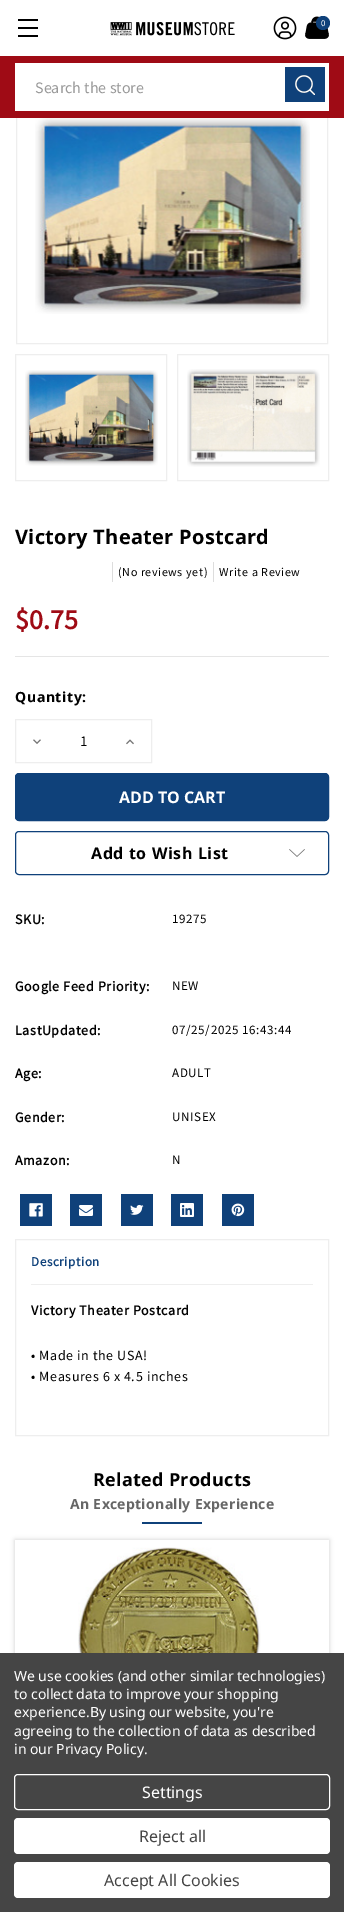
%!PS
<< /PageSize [344 1912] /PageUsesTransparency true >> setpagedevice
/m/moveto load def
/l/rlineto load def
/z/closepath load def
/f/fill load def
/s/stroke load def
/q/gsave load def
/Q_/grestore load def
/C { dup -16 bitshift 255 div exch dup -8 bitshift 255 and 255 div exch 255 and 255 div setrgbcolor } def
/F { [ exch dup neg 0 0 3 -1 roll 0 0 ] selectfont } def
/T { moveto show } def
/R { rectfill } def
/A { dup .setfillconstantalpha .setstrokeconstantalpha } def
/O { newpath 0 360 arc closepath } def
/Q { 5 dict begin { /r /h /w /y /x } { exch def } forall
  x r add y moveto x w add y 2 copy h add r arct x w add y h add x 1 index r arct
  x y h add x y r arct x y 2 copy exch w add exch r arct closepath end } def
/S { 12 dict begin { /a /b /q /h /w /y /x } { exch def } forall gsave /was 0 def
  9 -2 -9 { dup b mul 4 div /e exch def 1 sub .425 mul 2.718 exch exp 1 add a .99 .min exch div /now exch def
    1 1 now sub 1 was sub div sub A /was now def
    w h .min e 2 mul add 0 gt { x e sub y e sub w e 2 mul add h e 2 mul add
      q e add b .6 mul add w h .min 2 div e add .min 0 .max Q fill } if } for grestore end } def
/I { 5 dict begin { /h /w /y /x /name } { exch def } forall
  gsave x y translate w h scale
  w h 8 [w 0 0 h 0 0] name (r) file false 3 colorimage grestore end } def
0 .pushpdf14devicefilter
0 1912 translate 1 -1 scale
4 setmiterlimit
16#FFFFFF C
0 0 344 1912 R
16#000000 C
18 27 20 2 R
18 19 20 2 R
18 35 20 2 R
(1.rgb) 110 22 125 14 I
(2.rgb) 273 16 24 24 I
(3.rgb) 305 16 24 23 I
16#0F417A C
323 23 7 O f
/SourceSansPro-Regular 9 F
16#FFFFFF C
(0) 321 26 T
16#EEEEEE C
16.5 85.5 311 258 rectstroke
16#9F0B15 C
0 56 344 62 R
16#FFFFFF C
15 63 314 48 R
/SourceSansPro-Regular 16 F
16#999999 C
(Search the store) 35 93 T
16#0F417A C
285 67 40 35 R
(4.rgb) 295 75 20 20 I
(5.rgb) 35 118 275 196 I
16#EEEEEE C
15.5 354.5 151 126 rectstroke
(6.rgb) 25 370 133 96 I
177.5 354.5 151 126 rectstroke
(7.rgb) 187 369 133 98 I
/OpenSans-Bold 20 F
16#000000 C
15 544 m .3 0 (Victory Theater Postcard) ashow
16#DDDDDD C
213 562 1 20 R
112 562 1 20 R
/SourceSansPro-Regular 12 F
16#000000 C
118 576 m .6 0 (\(No reviews yet\)) ashow
219 576 m .6 0 (Write a Review) ashow
/SourceSansPro-Bold 28 F
16#9F0B15 C
($0.75) 15 629 T
16#E5E5E5 C
15 656 314 1 R
/OpenSans-Bold 14 F
16#000000 C
15 702 m .6 0 (Quantity:) ashow
16#EEEEEE C
15.5 719.5 136 43 rectstroke
(8.rgb) 33 739 8 5 I
/SourceSansPro-Regular 15 F
16#000000 C
(1) 80 746 T
(9.rgb) 126 739 8 6 I
16#0F417A C
15.5 773.5 313 47 3.5 Q q f Q_
s
/OpenSans-Bold 16 F
16#FFFFFF C
(ADD TO CART) 119 803 T
16#0F417A C
15.5 831.5 313 43 3.5 Q s
16#000000 C
91 859 m .6 0 (Add to Wish List) ashow
(10.rgb) 289 849 16 8 I
/SourceSansPro-Bold 14 F
15 924 m .6 0 (SKU:) ashow
/SourceSansPro-Regular 13 F
172 923 m .6 0 (19275) ashow
/SourceSansPro-Bold 14 F
15 991 m .6 0 (Google Feed Priority:) ashow
/SourceSansPro-Regular 13 F
172 990 m .6 0 (NEW) ashow
/SourceSansPro-Bold 14 F
15 1035 m .6 0 (LastUpdated:) ashow
/SourceSansPro-Regular 13 F
172 1034 m .6 0 (07/25/2025 16:43:44) ashow
/SourceSansPro-Bold 14 F
15 1078 m .6 0 (Age:) ashow
/SourceSansPro-Regular 13 F
172 1077 m .6 0 (ADULT) ashow
/SourceSansPro-Bold 14 F
15 1122 m .6 0 (Gender:) ashow
/SourceSansPro-Regular 13 F
172 1121 m .6 0 (UNISEX) ashow
/SourceSansPro-Bold 14 F
15 1165 m .6 0 (Amazon:) ashow
/SourceSansPro-Regular 13 F
172 1164 m .6 0 (N) ashow
16#0F417A C
20 1194 32 32 R
(11.rgb) 29 1203 14 14 I
70 1194 32 32 R
(12.rgb) 79 1205 14 11 I
121 1194 32 32 R
(13.rgb) 130 1204 14 11 I
171 1194 32 32 R
(14.rgb) 180 1203 14 14 I
222 1194 32 32 R
(15.rgb) 231 1203 14 14 I
16#EEEEEE C
15.5 1239.5 313 196 rectstroke
31 1284 282 1 R
/SourceSansPro-Bold 13 F
16#0F417A C
31 1266 m .6 0 (Description) ashow
/SourceSansPro-Bold 14 F
16#000000 C
31 1315 m .6 0 (Victory Theater Postcard) ashow
/SourceSansPro-Regular 14 F
31 1360 m .6 0 (• Made in the USA!) ashow
31 1381 m .6 0 (• Measures 6 x 4.5 inches) ashow
/OpenSans-Bold 18 F
93 1486 m .3 0 (Related Products) ashow
/OpenSans-Bold 14 F
16#666666 C
70 1509 m .3 0 (An Exceptionally Experience) ashow
16#0F417A C
142 1522 60 2 R
q
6 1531 m 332 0 l 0 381 l -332 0 l z 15 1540 m 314 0 l 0 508 l -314 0 l z eoclip newpath
16#000000 C
15 1540 314 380 0 2.5 .18 S
Q_
(16.rgb) 78 1547 183 106 I
16#454545 C
0 1653 344 259 R
/NotoSans-Regular 14 F
16#FFFFFF C
14 1681 m -.05 0 (We use cookies \(and other similar technologies\)) ashow
14 1699 m -.05 0 (to collect data to improve your shopping) ashow
14 1717 m -.05 0 (experience.By using our website, you're) ashow
14 1736 m -.05 0 (agreeing to the collection of data as described) ashow
14 1754 m -.05 0 (in our Privacy Policy.) ashow
14.5 1774.5 315 35 3.5 Q s
/NotoSans-Regular 16 F
(Settings) 142 1798 T
14 1818 316 36 4 Q f
16#454545 C
(Reject all) 139 1842 T
16#FFFFFF C
14 1862 316 36 4 Q f
16#454545 C
(Accept All Cookies) 104 1886 T
.poppdf14devicefilter showpage
